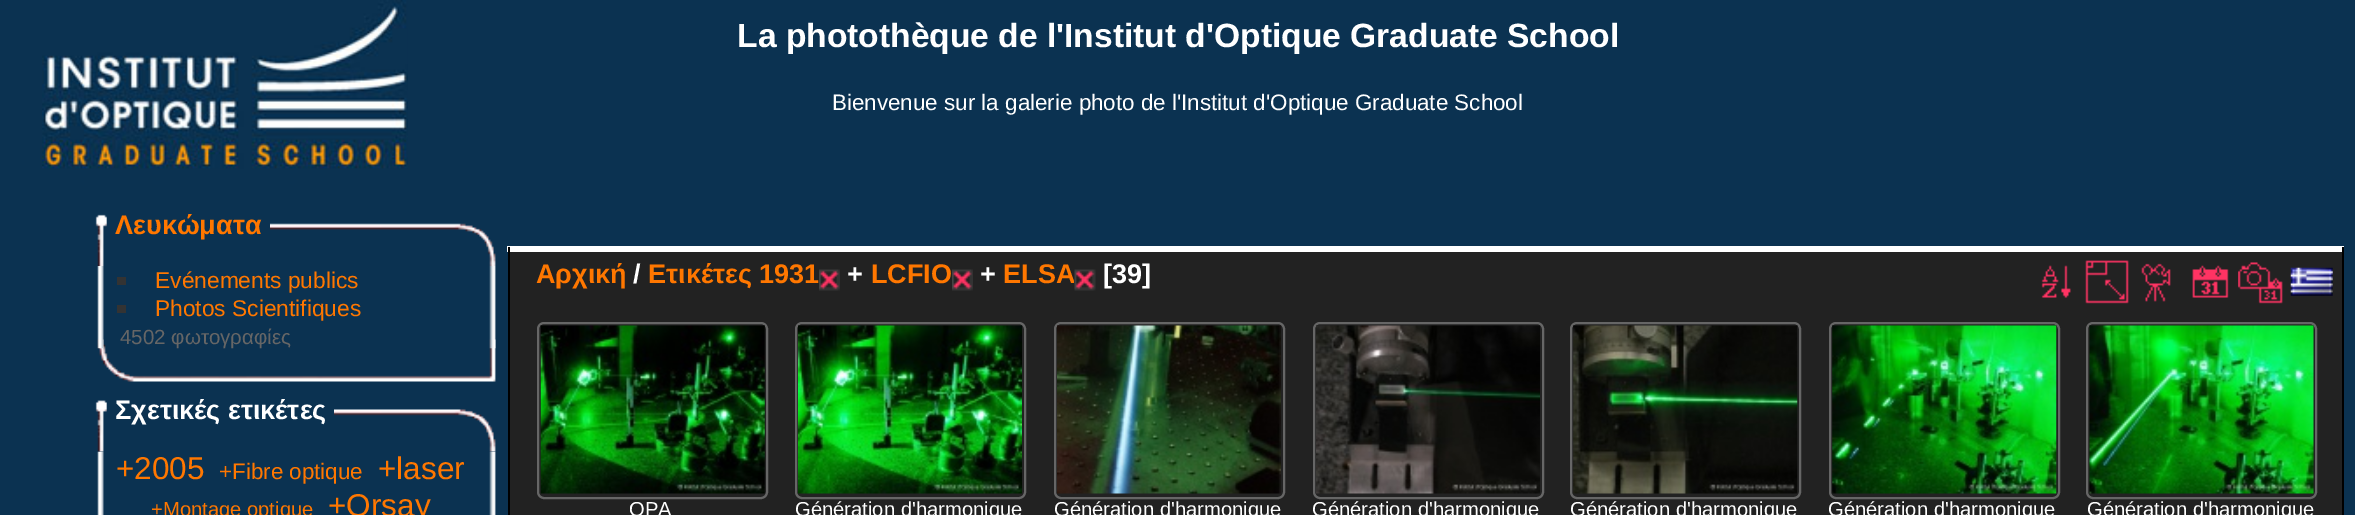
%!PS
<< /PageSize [2355 515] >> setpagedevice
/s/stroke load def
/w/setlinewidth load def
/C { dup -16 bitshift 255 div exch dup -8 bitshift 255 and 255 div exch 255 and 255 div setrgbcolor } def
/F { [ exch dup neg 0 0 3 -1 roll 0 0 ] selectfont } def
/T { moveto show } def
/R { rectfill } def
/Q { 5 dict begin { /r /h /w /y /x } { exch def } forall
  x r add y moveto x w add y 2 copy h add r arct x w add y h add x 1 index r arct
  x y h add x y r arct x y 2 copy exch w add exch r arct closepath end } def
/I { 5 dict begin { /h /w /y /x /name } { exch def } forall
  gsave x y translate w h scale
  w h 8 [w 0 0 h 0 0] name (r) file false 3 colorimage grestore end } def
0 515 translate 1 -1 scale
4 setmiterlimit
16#0B3251 C
0 0 2355 515 R
(1.rgb) 42 0 366 169 I
/LiberationSans-Bold 33.6 F
16#FFFFFF C
(La photothèque de l'Institut d'Optique Graduate School) 737 47 T
/LiberationSans-Regular 22.4 F
(Bienvenue sur la galerie photo de l'Institut d'Optique Graduate School) 832 110 T
(2.rgb) 95 214 401 52 I
16#0B3251 C
107 216 163 14 R
/LiberationSans-Bold 27 F
16#FF7700 C
(Λευκώματα) 115 234 T
(3.rgb) 97 339 399 43 I
(4.rgb) 97 266 399 56 I
16#333333 C
117 277 9 8 R
/LiberationSans-Regular 22.75 F
16#FF7700 C
(Evénements publics) 155 288 T
16#333333 C
117 305 9 8 R
16#FF7700 C
(Photos Scientifiques) 155 316 T
(5.rgb) 97 322 399 27 I
/LiberationSans-Regular 20.5 F
16#666666 C
(4502 φωτογραφίες) 120 344 T
(6.rgb) 95 400 401 52 I
16#0B3251 C
107 402 227 14 R
/LiberationSans-Bold 27 F
16#FFFFFF C
(Σχετικές ετικέτες) 115 419 T
(7.rgb) 97 451 399 64 I
/LiberationSans-Regular 31.5 F
16#FF7700 C
(+2005) 116 479 T
/LiberationSans-Regular 22.4 F
(+Fibre optique) 219 479 T
/LiberationSans-Regular 31.5 F
(+laser) 378 479 T
/LiberationSans-Regular 20.2 F
(+Montage optique) 151 516 T
/LiberationSans-Regular 31.5 F
(+Orsay) 328 516 T
16#222222 C
510 252 1832 263 R
16#FFFFFF C
507 246 1837 6 R
16#000000 C
2342 247 2 268 R
508 247 2 268 R
/LiberationSans-Bold 27 F
16#FF7700 C
(Αρχική) 536 283 T
16#FFFFFF C
(/) 633 283 T
16#FF7700 C
(Ετικέτες 1931) 648 283 T
(8.rgb) 819 269 21 22 I
16#FFFFFF C
(+) 847 283 T
16#FF7700 C
(LCFIO) 871 283 T
(8.rgb) 952 269 21 22 I
16#FFFFFF C
(+) 980 283 T
16#FF7700 C
(ELSA) 1003 283 T
(9.rgb) 1074 269 22 22 I
16#FFFFFF C
([39]) 1103 283 T
(10.rgb) 2041 265 30 33 I
(11.rgb) 2085 260 44 44 I
(12.rgb) 2141 263 30 39 I
(13.rgb) 2192 265 37 33 I
(14.rgb) 2238 262 45 42 I
(15.rgb) 2290 267 43 29 I
16#666666 C
2 w
538 323 229 175 6 Q s
(16.rgb) 540 325 225 169 I
/LiberationSans-Regular 20.2 F
16#FFFFFF C
(OPA) 629 516 T
16#666666 C
796 323 229 175 6 Q s
(17.rgb) 798 325 224 169 I
16#FFFFFF C
(Génération d'harmonique) 795 516 T
16#666666 C
1055 323 229 175 6 Q s
(18.rgb) 1057 325 224 169 I
16#FFFFFF C
(Génération d'harmonique) 1054 516 T
16#666666 C
1314 323 229 175 6 Q s
(19.rgb) 1316 325 224 169 I
16#FFFFFF C
(Génération d'harmonique) 1312 516 T
16#666666 C
1571 323 229 175 6 Q s
(20.rgb) 1573 325 225 169 I
16#FFFFFF C
(Génération d'harmonique) 1570 516 T
16#666666 C
1830 323 229 175 6 Q s
(21.rgb) 1832 325 225 169 I
16#FFFFFF C
(Génération d'harmonique) 1828 516 T
16#666666 C
2087 323 229 175 6 Q s
(22.rgb) 2089 325 225 169 I
16#FFFFFF C
(Génération d'harmonique) 2087 516 T
showpage
